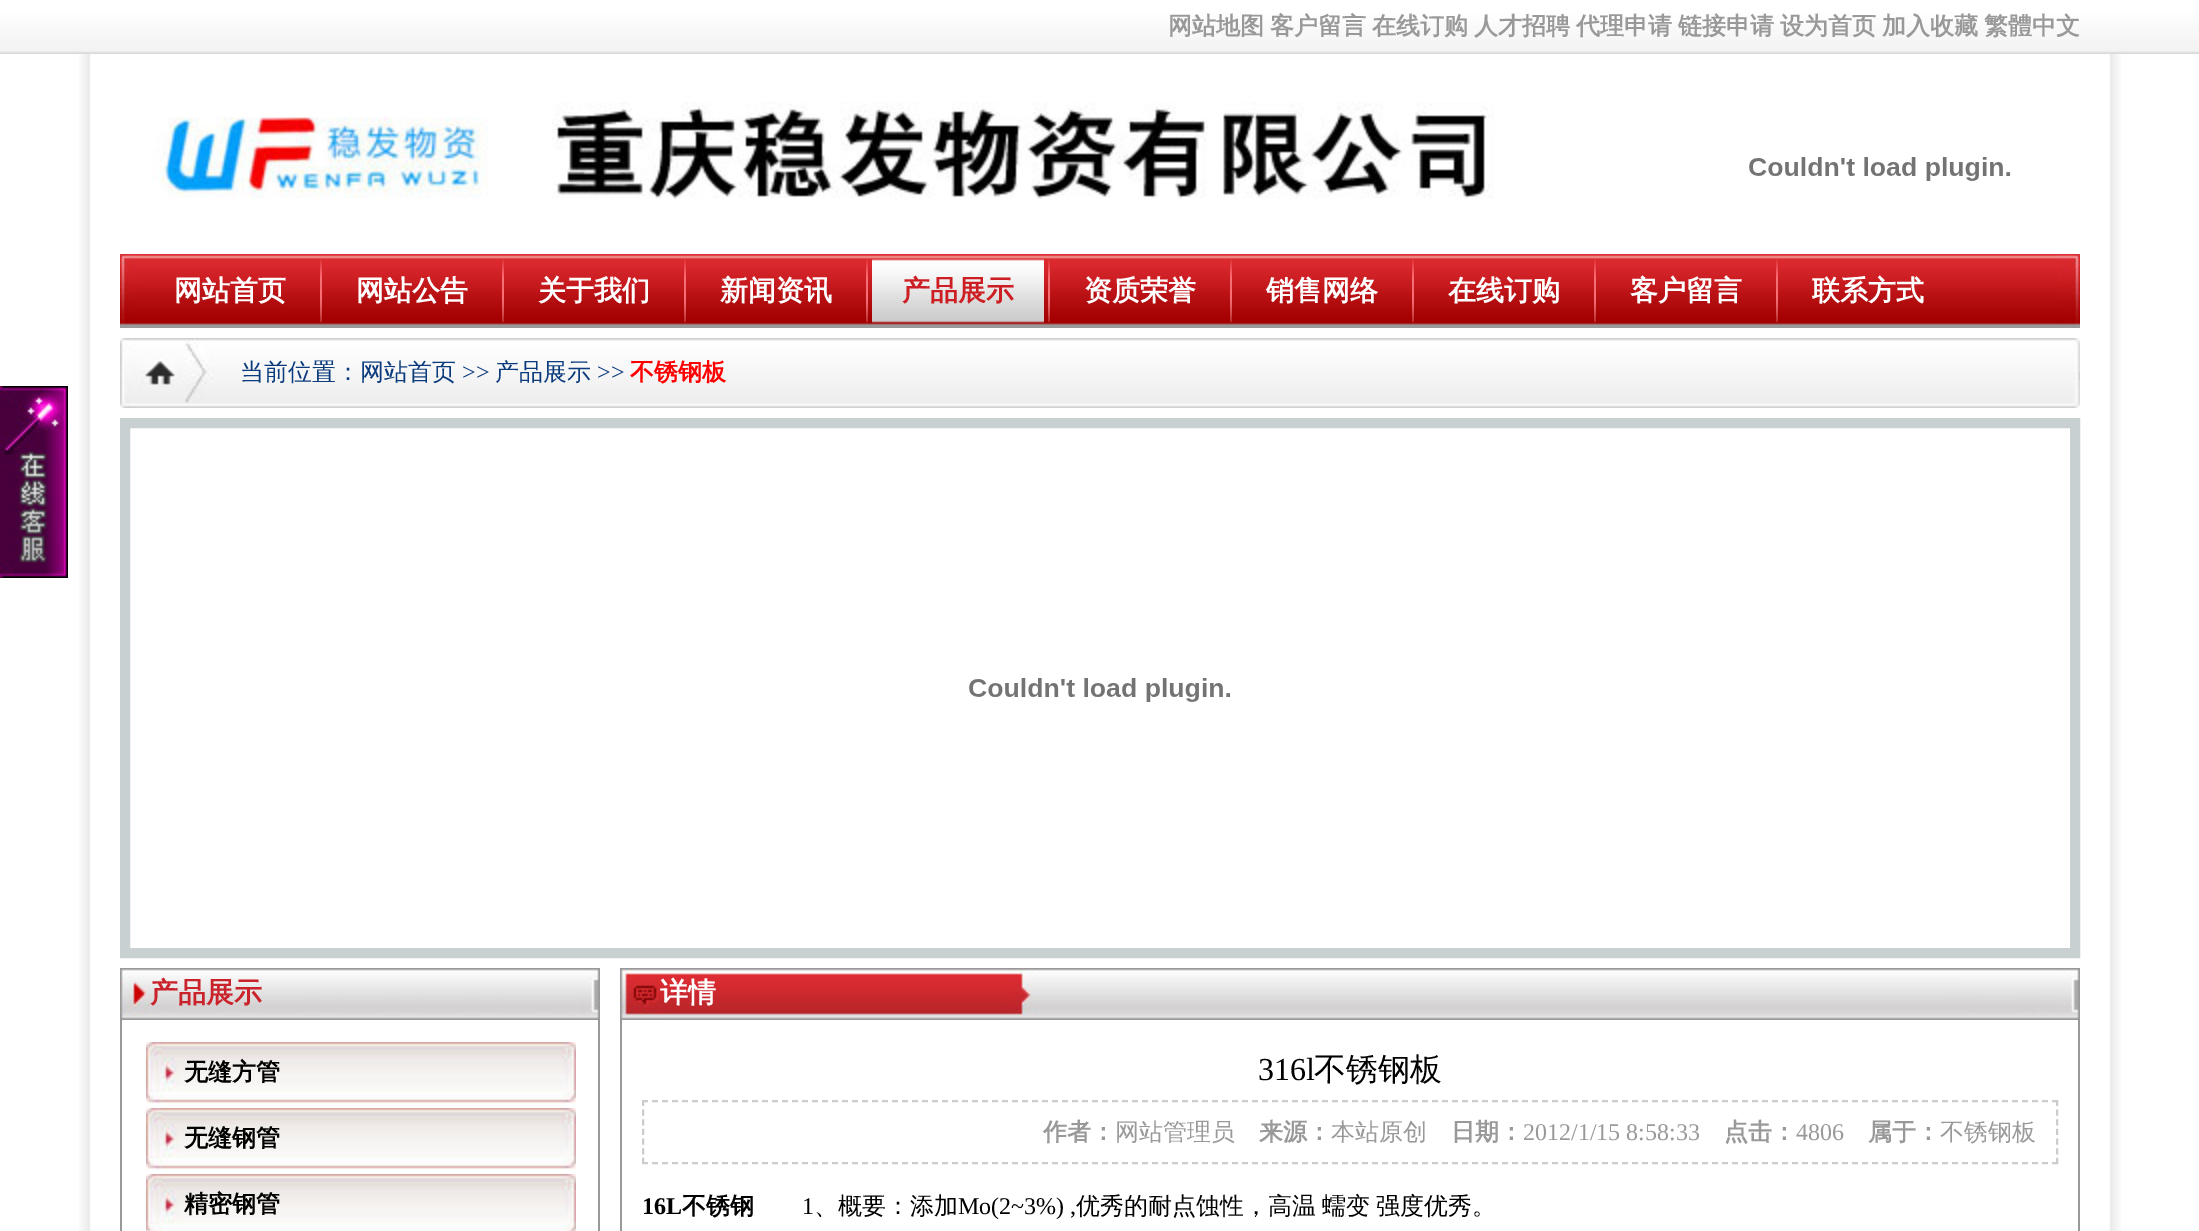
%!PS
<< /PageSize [2199 1231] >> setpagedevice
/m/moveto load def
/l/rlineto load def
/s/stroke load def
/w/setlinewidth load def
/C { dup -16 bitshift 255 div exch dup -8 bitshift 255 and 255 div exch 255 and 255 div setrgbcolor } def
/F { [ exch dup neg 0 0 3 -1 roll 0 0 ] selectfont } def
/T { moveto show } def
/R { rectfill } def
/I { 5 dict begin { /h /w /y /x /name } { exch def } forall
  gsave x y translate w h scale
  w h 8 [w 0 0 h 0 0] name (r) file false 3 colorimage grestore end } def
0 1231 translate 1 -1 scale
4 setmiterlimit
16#FFFFFF C
0 0 2199 1231 R
(1.rgb) 79 54 2042 1177 I
(2.rgb) 0 0 2199 54 I
/WenQuanYiZenHei-Bold 24 F
16#999999 C
(网站地图) 1168 34 T
(客户留言) 1270 34 T
(在线订购) 1372 34 T
(人才招聘) 1474 34 T
(代理申请) 1576 34 T
(链接申请) 1678 34 T
(设为首页) 1780 34 T
(加入收藏) 1882 34 T
(繁體中文) 1984 34 T
(3.rgb) 152 117 336 82 I
(4.rgb) 552 102 942 97 I
(5.rgb) 1749 157 262 24 I
(6.rgb) 120 254 1960 74 I
/WenQuanYiZenHei-Bold 28 F
16#FFFFFF C
(网站首页) 174 300 T
(7.rgb) 320 259 2 64 I
(网站公告) 356 300 T
(7.rgb) 502 259 2 64 I
(关于我们) 538 300 T
(7.rgb) 684 259 2 64 I
(新闻资讯) 720 300 T
(7.rgb) 866 259 2 64 I
(8.rgb) 872 259 172 64 I
16#CD1E23 C
(产品展示) 902 300 T
(7.rgb) 1048 259 2 64 I
16#FFFFFF C
(资质荣誉) 1084 300 T
(7.rgb) 1230 259 2 64 I
(销售网络) 1266 300 T
(7.rgb) 1412 259 2 64 I
(在线订购) 1448 300 T
(7.rgb) 1594 259 2 64 I
(客户留言) 1630 300 T
(7.rgb) 1776 259 2 64 I
(联系方式) 1812 300 T
(9.rgb) 120 338 1960 70 I
/WenQuanYiZenHei-Medium 24 F
16#0B3B7D C
(当前位置：网站首页) 240 380 T
/LiberationSerif-Regular 24 F
(>>) 462 380 T
/WenQuanYiZenHei-Medium 24 F
(产品展示) 495 380 T
/LiberationSerif-Regular 24 F
(>>) 597 380 T
/WenQuanYiZenHei-Bold 24 F
16#FF0000 C
(不锈钢板) 630 380 T
(10.rgb) 0 386 68 192 I
16#C8D0D2 C
10 w
125 423 1950 530 rectstroke
(5.rgb) 969 678 262 24 I
(11.rgb) 120 968 480 52 I
/WenQuanYiZenHei-Bold 28 F
16#CA232B C
(产品展示) 150 1002 T
16#999999 C
598 1020 2 211 R
120 1020 2 211 R
(12.rgb) 146 1042 430 62 I
/WenQuanYiZenHei-Bold 24 F
16#000000 C
(无缝方管) 184 1080 T
(12.rgb) 146 1108 430 62 I
(无缝钢管) 184 1146 T
(13.rgb) 146 1174 430 57 I
(精密钢管) 184 1212 T
(14.rgb) 620 968 1460 52 I
/WenQuanYiZenHei-Bold 28 F
16#FFFFFF C
(详情) 660 1002 T
16#999999 C
2078 1020 2 211 R
620 1020 2 211 R
/LiberationSerif-Regular 32 F
16#000000 C
(316l) 1258 1080 T
/WenQuanYiZenHei-Medium 32 F
(不锈钢板) 1314 1080 T
16#CCCCCC C
2 w
[6 4] 0 setdash
642 1101 m 1416 0 l s
[6 3.66] 0 setdash
2057 1100 m 0 64 l s
[6 4] 0 setdash
642 1163 m 1416 0 l s
[6 3.66] 0 setdash
643 1100 m 0 64 l s
/WenQuanYiZenHei-Bold 24 F
16#999999 C
(作者：) 1043 1140 T
/WenQuanYiZenHei-Medium 24 F
(网站管理员) 1115 1140 T
/WenQuanYiZenHei-Bold 24 F
(来源：) 1259 1140 T
/WenQuanYiZenHei-Medium 24 F
(本站原创) 1331 1140 T
/WenQuanYiZenHei-Bold 24 F
(日期：) 1451 1140 T
/LiberationSerif-Regular 24 F
(2012/1/15 8:58:33) 1523 1140 T
/WenQuanYiZenHei-Bold 24 F
(点击：) 1724 1140 T
/LiberationSerif-Regular 24 F
(4806) 1796 1140 T
/WenQuanYiZenHei-Bold 24 F
(属于：) 1868 1140 T
/WenQuanYiZenHei-Medium 24 F
(不锈钢板) 1940 1140 T
/LiberationSerif-Bold 24 F
16#000000 C
(16L) 642 1214 T
/WenQuanYiZenHei-Bold 24 F
(不锈钢) 682 1214 T
/LiberationSerif-Regular 24 F
(1) 802 1214 T
/WenQuanYiZenHei-Medium 24 F
(、概要：添加) 814 1214 T
/LiberationSerif-Regular 24 F
(Mo\(2~3%\) ,) 958 1214 T
/WenQuanYiZenHei-Medium 24 F
(优秀的耐点蚀性，高温) 1076 1214 T
(蠕变) 1322 1214 T
(强度优秀。) 1376 1214 T
showpage
